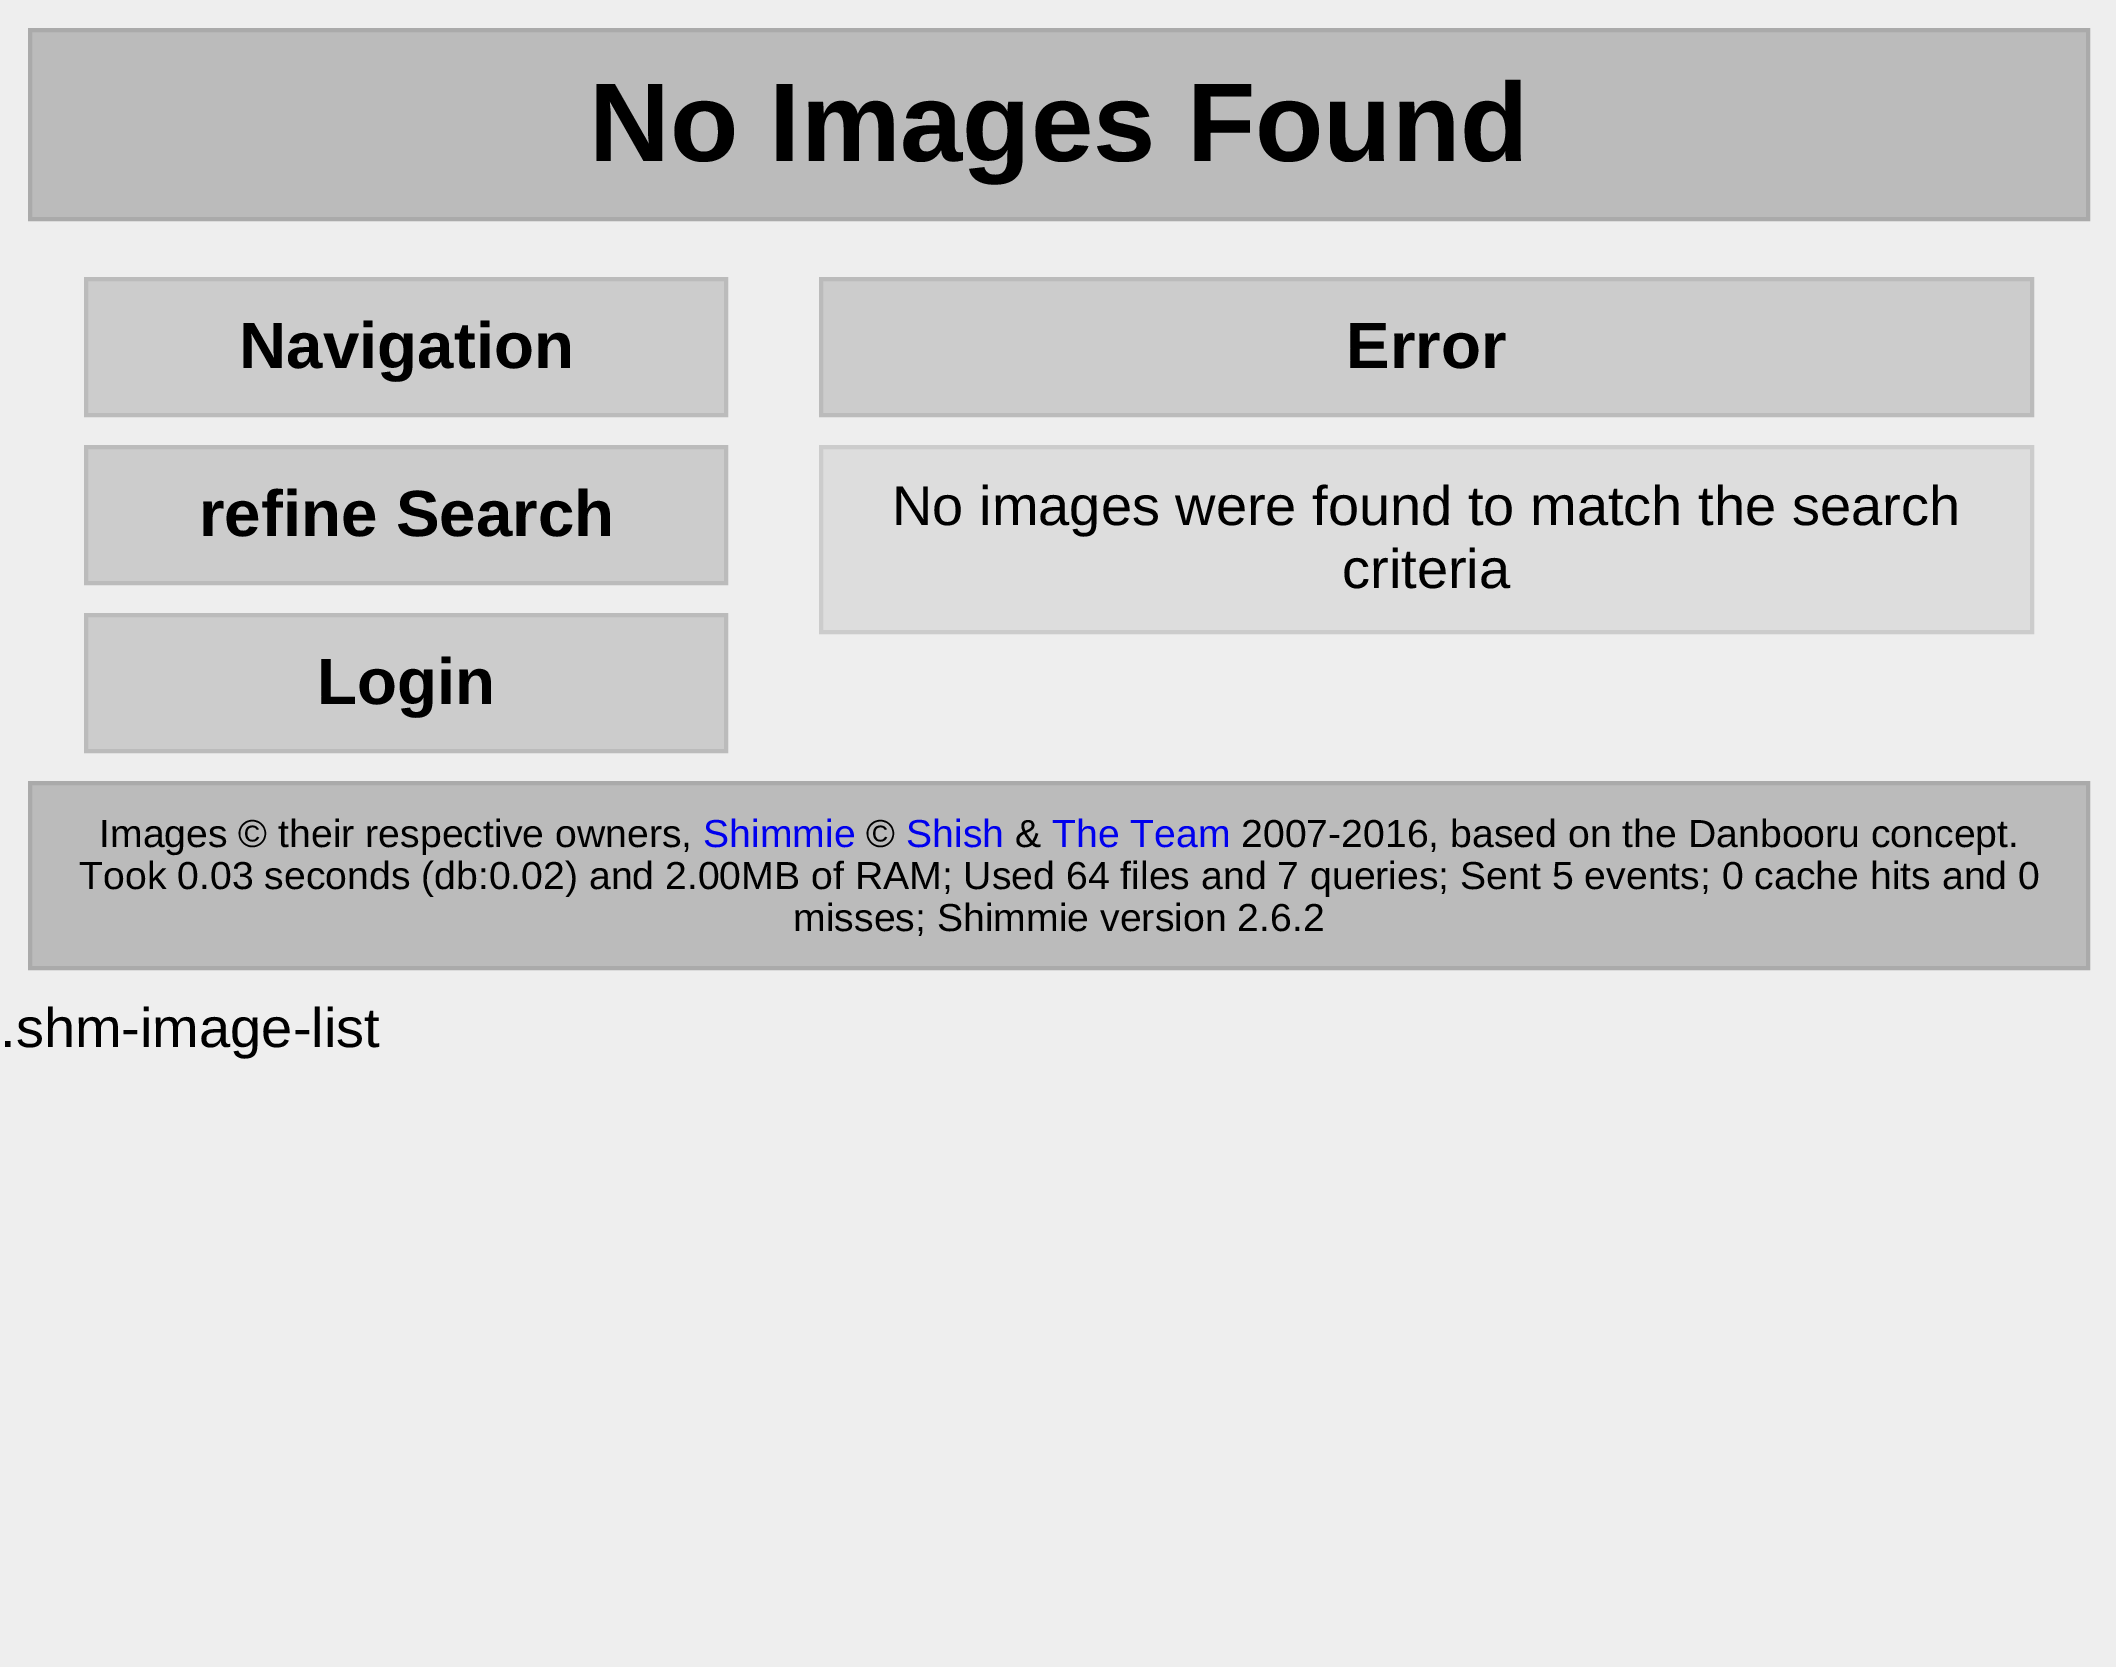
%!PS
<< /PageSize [2116 1667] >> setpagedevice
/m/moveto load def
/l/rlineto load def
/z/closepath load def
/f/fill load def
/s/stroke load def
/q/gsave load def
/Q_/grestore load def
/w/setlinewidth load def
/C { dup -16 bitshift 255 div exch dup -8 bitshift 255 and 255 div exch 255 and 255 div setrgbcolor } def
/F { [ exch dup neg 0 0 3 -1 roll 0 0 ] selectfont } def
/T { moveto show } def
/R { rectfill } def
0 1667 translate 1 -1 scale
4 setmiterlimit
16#EEEEEE C
0 0 2116 1667 R
16#BBBBBB C
30 30 m 2058 0 l 0 189 l -2058 0 l z q f Q_
16#AAAAAA C
4 w
s
/LiberationSans-Bold 112 F
16#000000 C
(No Images Found) 589 161 T
16#CCCCCC C
86 279 m 640 0 l 0 136 l -640 0 l z q f Q_
16#BBBBBB C
s
/LiberationSans-Bold 65.5 F
16#000000 C
(Navigation) 239 368 T
16#CCCCCC C
86 447 m 640 0 l 0 136 l -640 0 l z q f Q_
16#BBBBBB C
s
16#000000 C
(refine Search) 199 536 T
16#CCCCCC C
86 615 m 640 0 l 0 136 l -640 0 l z q f Q_
16#BBBBBB C
s
16#000000 C
(Login) 317 704 T
16#CCCCCC C
821 279 m 1211 0 l 0 136 l -1211 0 l z q f Q_
16#BBBBBB C
s
16#000000 C
(Error) 1346 368 T
16#DDDDDD C
821 447 m 1211 0 l 0 185 l -1211 0 l z q f Q_
16#CCCCCC C
s
/LiberationSans-Regular 56 F
16#000000 C
(No images were found to match the search) 892 525 T
(criteria) 1342 588 T
16#BBBBBB C
30 783 m 2058 0 l 0 185 l -2058 0 l z q f Q_
16#AAAAAA C
s
/LiberationSans-Regular 39.2 F
16#000000 C
(Images © their respective owners,) 99 847 T
16#0000EE C
(Shimmie) 703 847 T
16#000000 C
(©) 866 847 T
16#0000EE C
(Shish) 906 847 T
16#000000 C
(&) 1015 847 T
16#0000EE C
(The Team) 1052 847 T
16#000000 C
(2007-2016, based on the Danbooru concept.) 1241 847 T
(Took 0.03 seconds \(db:0.02\) and) 79 889 T
(2.00MB of RAM; Used 64 files and 7 queries; Sent 5 events; 0 cache hits and 0) 665 889 T
(misses; Shimmie version 2.6.2) 793 931 T
/LiberationSans-Regular 56 F
(.shm-image-list) 0 1047 T
showpage
